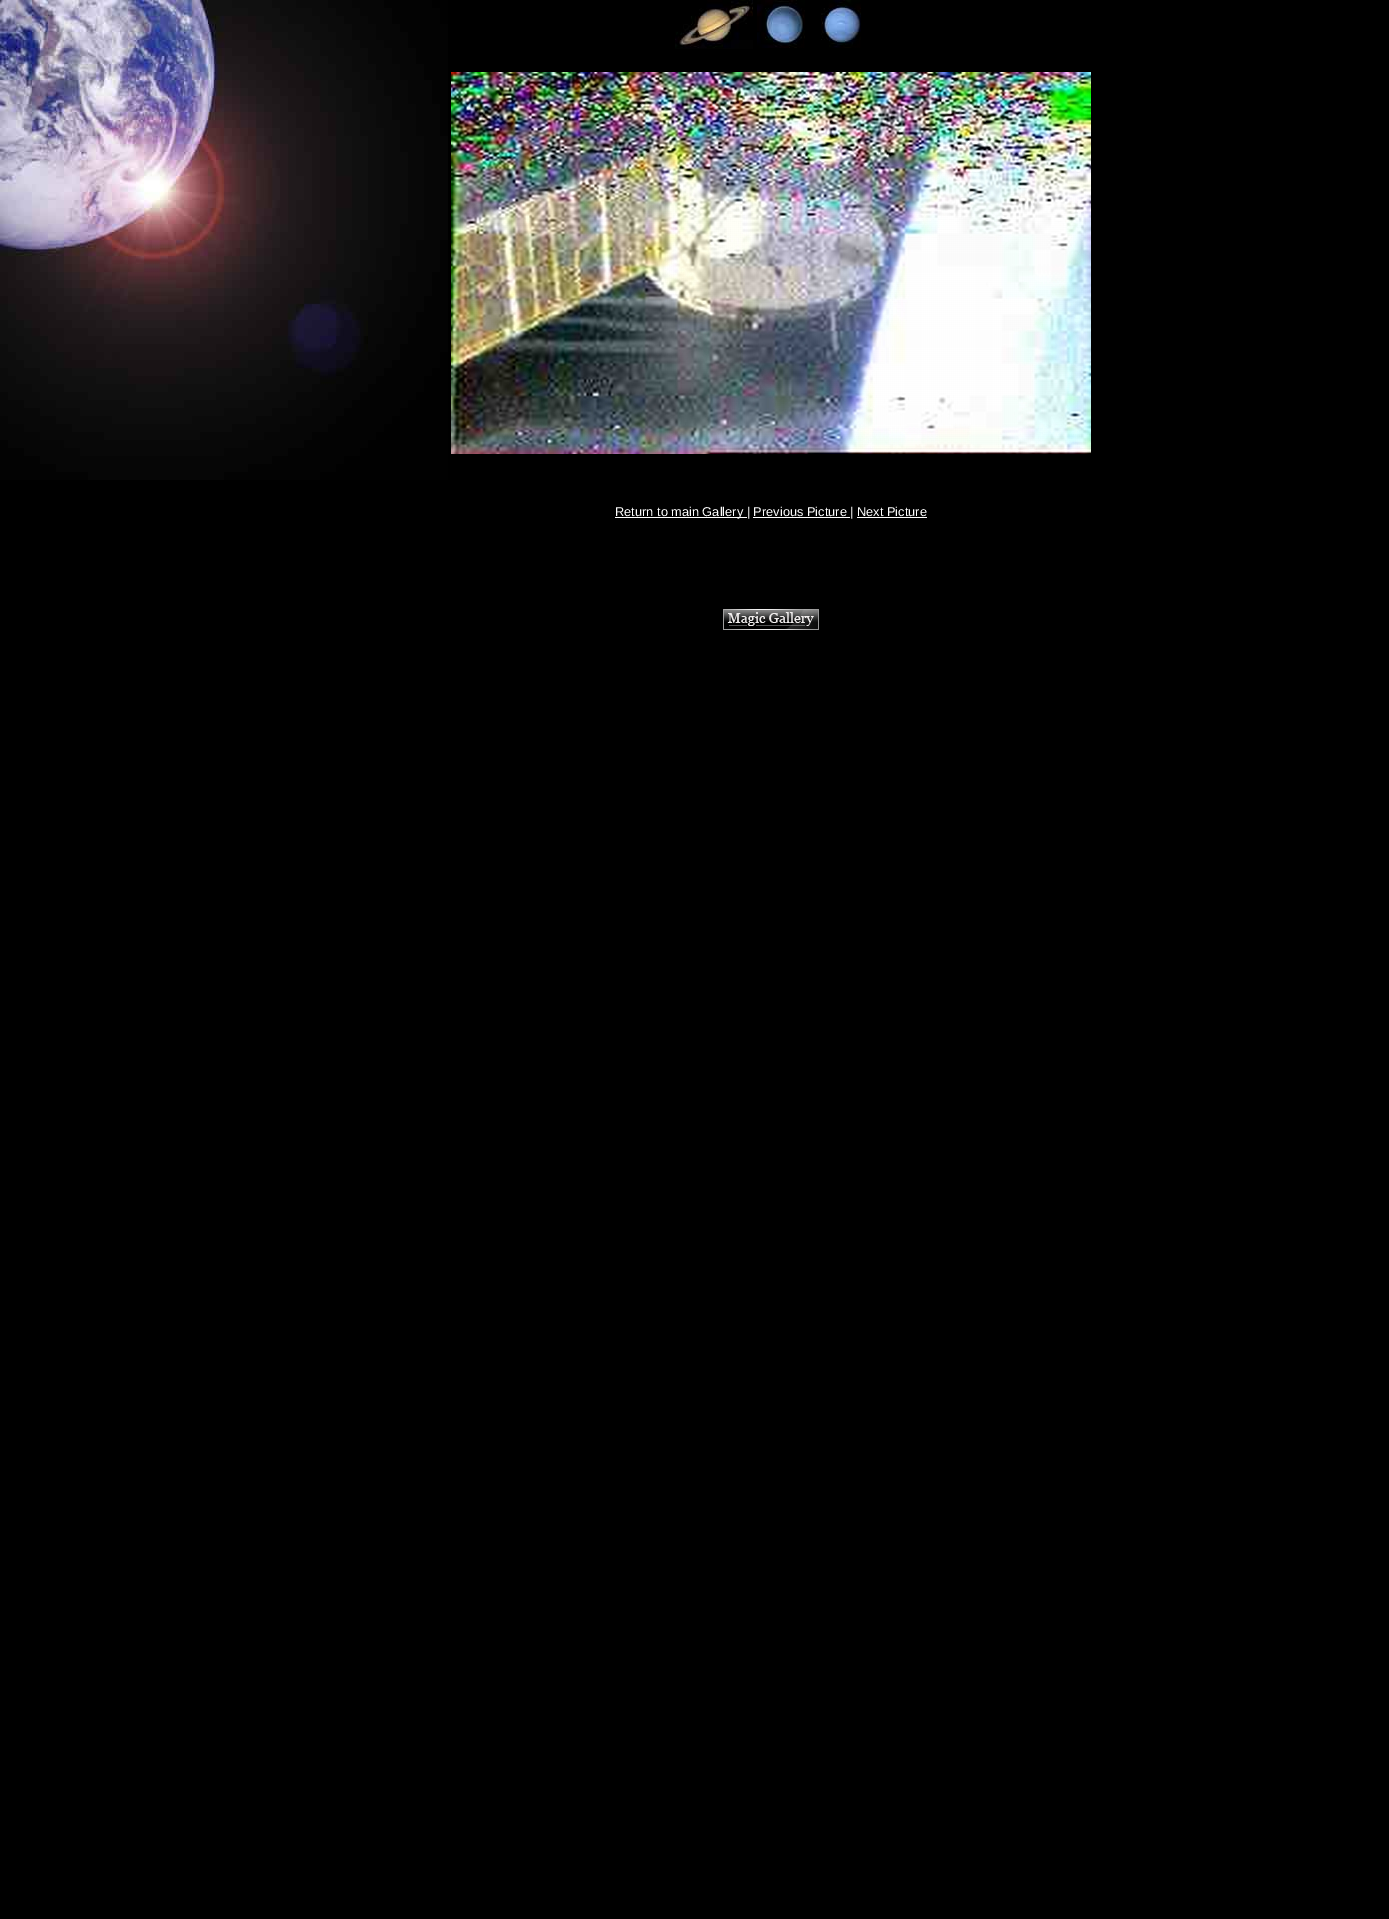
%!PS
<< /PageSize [1389 1919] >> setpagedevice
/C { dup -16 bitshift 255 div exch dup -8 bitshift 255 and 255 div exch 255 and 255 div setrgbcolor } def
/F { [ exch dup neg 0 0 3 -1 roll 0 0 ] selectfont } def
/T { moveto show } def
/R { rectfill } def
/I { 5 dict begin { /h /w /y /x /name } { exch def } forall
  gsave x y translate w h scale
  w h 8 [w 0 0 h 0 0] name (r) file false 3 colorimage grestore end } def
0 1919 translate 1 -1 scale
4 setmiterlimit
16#000000 C
0 0 1389 1919 R
(1.rgb) 0 0 448 480 I
(2.rgb) 675 0 78 49 I
(3.rgb) 757 0 48 48 I
(4.rgb) 821 0 40 48 I
(5.rgb) 451 72 640 382 I
16#FFFFFF C
615 517 132 1 R
/LiberationSans-Regular 12.8 F
(Return to main Gallery | Previous Picture | Next Picture) 615 516 T
753 517 97 1 R
857 517 70 1 R
(6.rgb) 723 609 96 21 I
showpage
